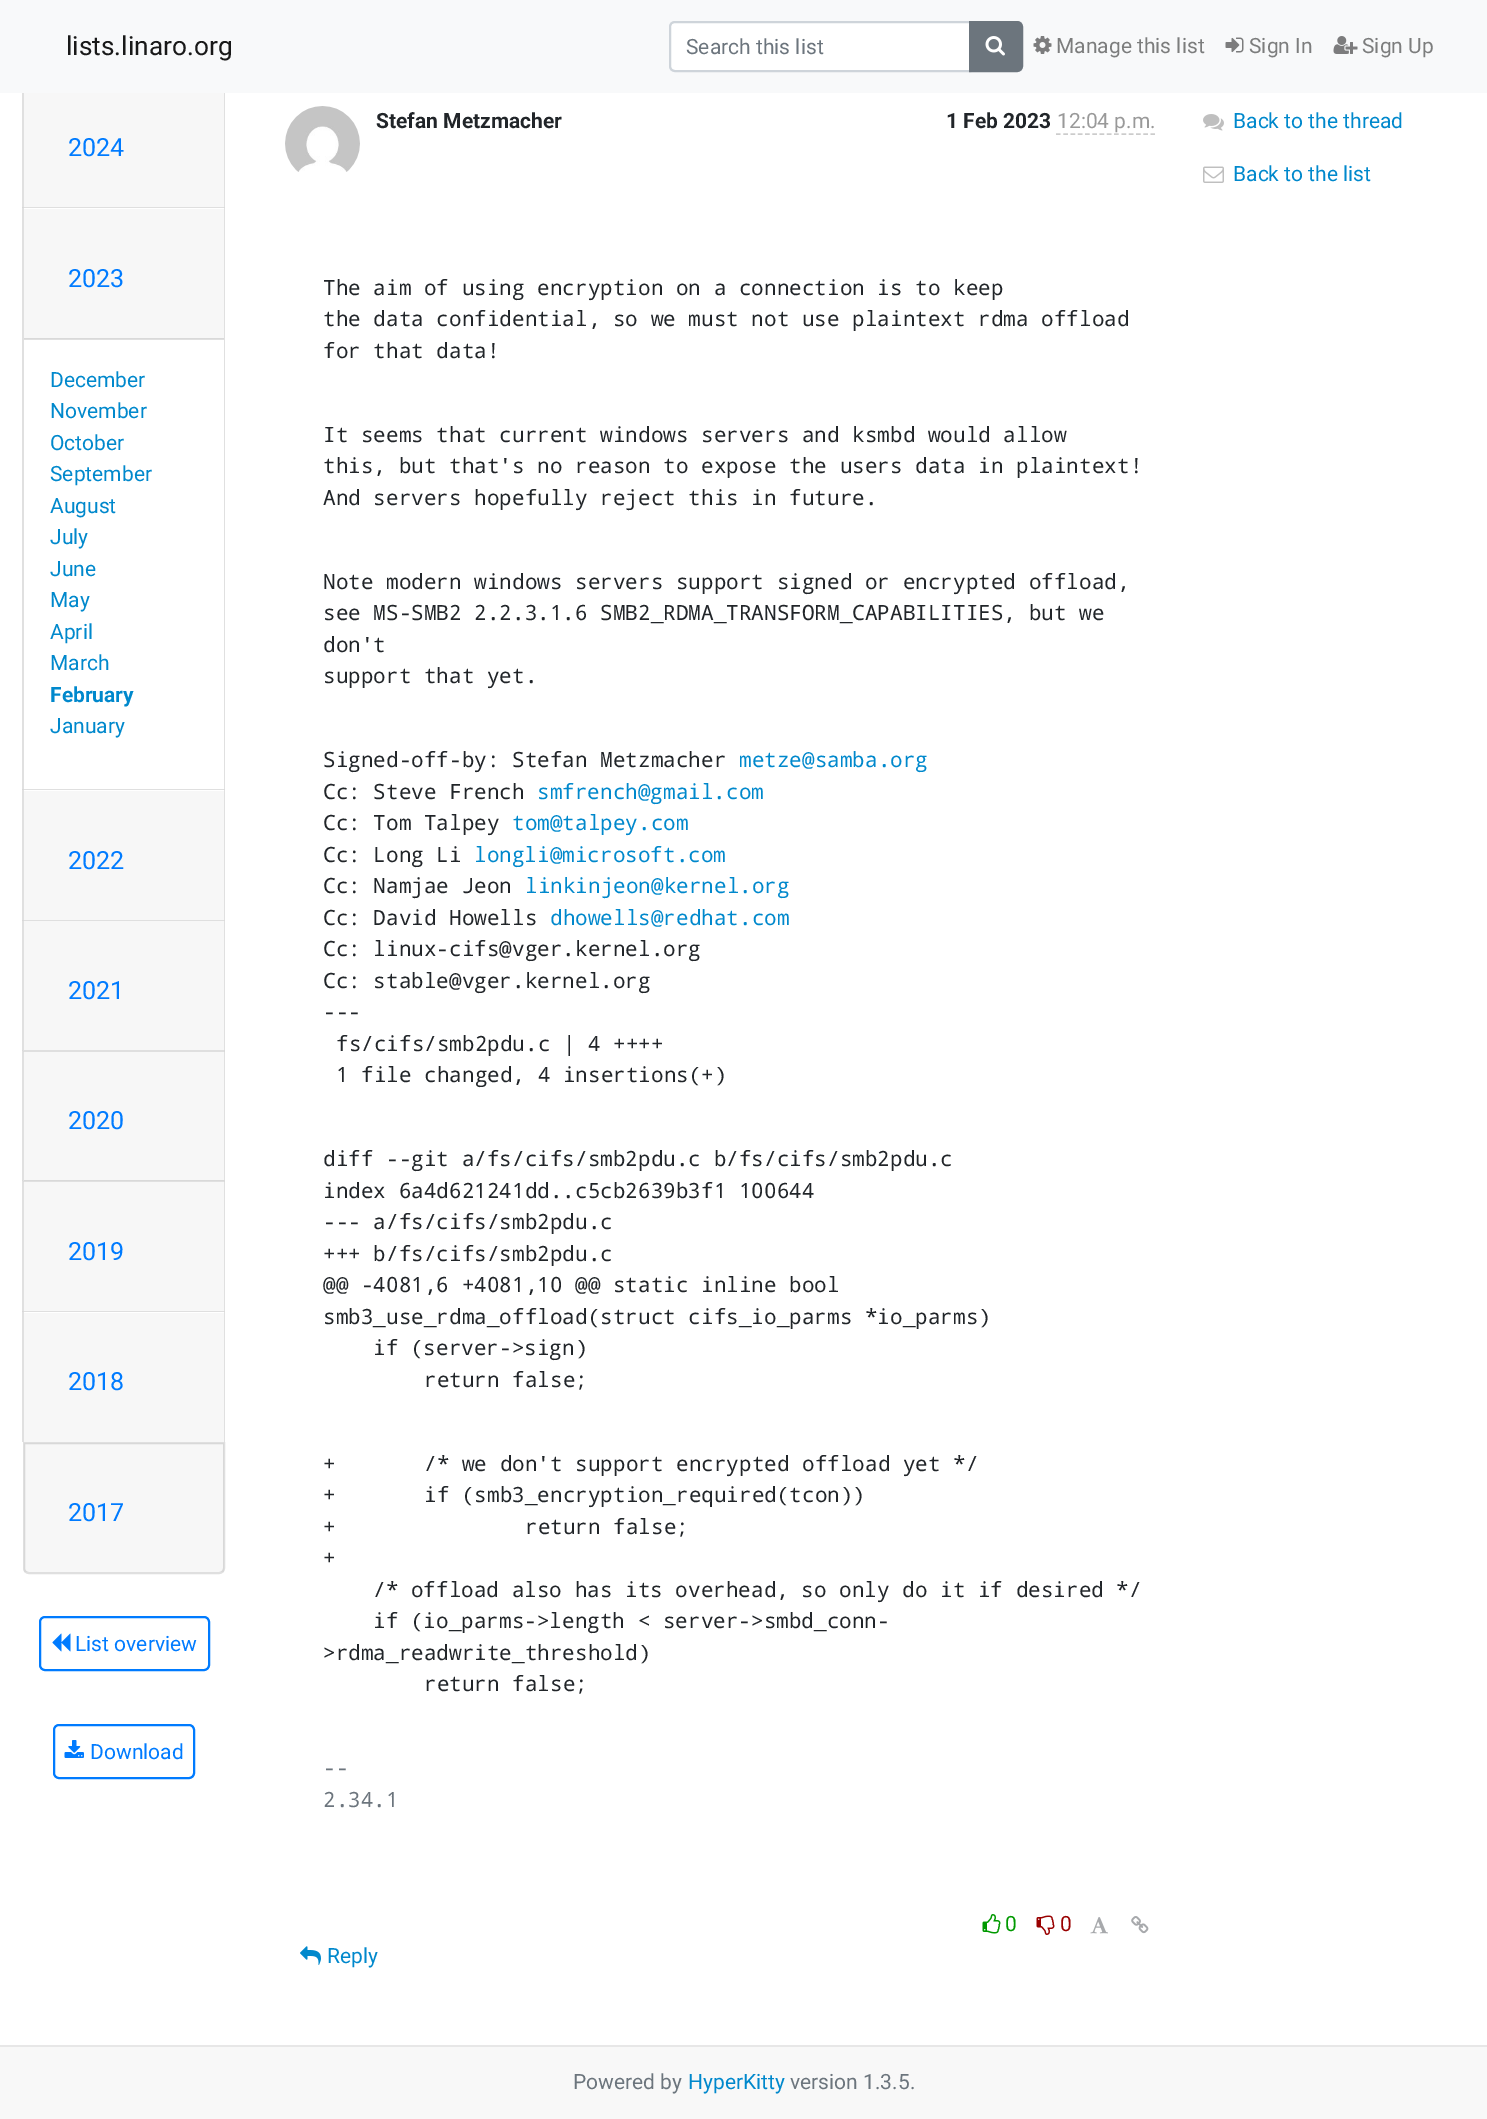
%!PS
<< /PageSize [1487 2119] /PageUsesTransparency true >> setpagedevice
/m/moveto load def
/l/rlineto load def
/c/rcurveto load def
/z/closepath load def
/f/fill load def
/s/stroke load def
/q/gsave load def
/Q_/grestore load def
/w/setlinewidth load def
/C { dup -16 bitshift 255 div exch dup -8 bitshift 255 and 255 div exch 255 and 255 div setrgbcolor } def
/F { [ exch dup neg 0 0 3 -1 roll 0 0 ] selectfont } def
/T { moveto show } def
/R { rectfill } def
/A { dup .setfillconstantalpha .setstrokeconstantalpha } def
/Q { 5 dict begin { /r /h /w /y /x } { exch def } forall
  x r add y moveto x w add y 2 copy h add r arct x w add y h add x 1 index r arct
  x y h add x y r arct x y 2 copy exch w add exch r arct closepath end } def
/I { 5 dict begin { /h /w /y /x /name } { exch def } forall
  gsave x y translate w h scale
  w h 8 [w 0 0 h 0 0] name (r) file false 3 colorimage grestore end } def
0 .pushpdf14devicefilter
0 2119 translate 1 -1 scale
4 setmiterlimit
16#FFFFFF C
0 0 1487 2119 R
16#E0E0E0 C
24 339 200 1 R
0.12 A
16#000000 C
225 76 m 0 131 l -1 0 l 0 -129 l z f
22 207 m 0 -131 l 2 2 l 0 129 l z f
1 A
16#F8F9FA C
0 0 1487 93 R
/Roboto-Regular 26.25 F
16#191919 C
(lists.linaro.org) 66 55 T
16#FFFFFF C
675 22 m 295 0 l 0 49 l -295 0 l -3 0 -5 -2 -5 -5 c 0 -39 l 0 -3 2 -5 5 -5 c z q f Q_
16#CED4DA C
2 w
s
/Roboto-Regular 21 F
16#6C757D C
(Search this list) 686 54 T
970 22 m 47 0 l 3 0 5 2 5 5 c 0 39 l 0 3 -2 5 -5 5 c -47 0 l z q f Q_
s
(1.rgb) 985 36 20 20 I
(2.rgb) 1033 36 19 18 I
16#7C7D7D C
(Manage this list) 1056 53 T
(3.rgb) 1225 37 19 16 I
(Sign In) 1249 53 T
(4.rgb) 1333 36 25 18 I
(Sign Up) 1362 53 T
16#F7F7F7 C
24 93 200 114 R
/Roboto-Regular 25 F
16#007BFF C
(2024) 68 156 T
16#DFDFDF C
22 207 m 203 0 l -1 1 l -200 0 l z f
0.12 A
16#000000 C
225 207 m 0 582 l -1 0 l 0 -581 l z f
22 789 m 0 -582 l 2 1 l 0 581 l z f
1 A
16#F7F7F7 C
24 209 200 129 R
16#D9D9D9 C
24 338 200 1 R
16#007BFF C
(2023) 68 287 T
/Roboto-Regular 21 F
16#0088CC C
(December) 50 387 T
(November) 50 418 T
(October) 50 450 T
(September) 50 481 T
(August) 50 513 T
(July) 50 544 T
(June) 50 576 T
(May) 50 607 T
(April) 50 639 T
(March) 50 670 T
/Roboto-Bold 21 F
(February) 50 702 T
/Roboto-Regular 21 F
(January) 50 733 T
16#DFDFDF C
22 789 m 203 0 l -1 1 l -200 0 l z f
0.12 A
16#000000 C
225 789 m 0 131 l -1 0 l 0 -130 l z f
22 920 m 0 -131 l 2 1 l 0 130 l z f
1 A
16#F7F7F7 C
24 791 200 129 R
/Roboto-Regular 25 F
16#007BFF C
(2022) 68 869 T
16#DFDFDF C
22 920 m 203 0 l -1 1 l -200 0 l z f
0.12 A
16#000000 C
225 920 m 0 130 l -1 0 l 0 -129 l z f
22 1050 m 0 -130 l 2 1 l 0 129 l z f
1 A
16#F7F7F7 C
24 921 200 129 R
16#007BFF C
(2021) 68 999 T
16#DFDFDF C
22 1050 m 203 0 l -1 2 l -200 0 l z f
0.12 A
16#000000 C
225 1050 m 0 130 l -1 0 l 0 -128 l z f
22 1180 m 0 -130 l 2 2 l 0 128 l z f
1 A
16#F7F7F7 C
24 1052 200 129 R
16#007BFF C
(2020) 68 1129 T
0.12 A
16#000000 C
22 1180 m 203 0 l -1 2 l -200 0 l z f
225 1180 m 0 131 l -1 0 l 0 -129 l z f
22 1311 m 0 -131 l 2 2 l 0 129 l z f
1 A
16#F7F7F7 C
24 1182 200 129 R
16#007BFF C
(2019) 68 1260 T
16#DFDFDF C
22 1311 m 203 0 l -1 1 l -200 0 l z f
0.12 A
16#000000 C
225 1311 m 0 131 l -1 0 l 0 -130 l z f
22 1442 m 0 -131 l 2 1 l 0 130 l z f
1 A
16#F7F7F7 C
24 1313 200 129 R
16#007BFF C
(2018) 68 1390 T
16#DFDFDF C
24 1443 m 200 0 l 0 125 l 0 3 -2 5 -5 5 c -190 0 l -3 0 -5 -2 -5 -5 c z s
0.03 A
16#000000 C
24 1443 200 129 R
1 A
16#007BFF C
(2017) 68 1521 T
40 1617 169 53 5 Q s
(5.rgb) 52 1633 19 19 I
/Roboto-Regular 21 F
(List overview) 75 1651 T
54 1725 140 53 5 Q s
(6.rgb) 64 1740 20 18 I
(Download) 90 1759 T
(7.rgb) 285 106 75 66 I
/Roboto-Bold 21 F
16#212529 C
(Stefan Metzmacher) 376 128 T
(1 Feb 2023) 946 128 T
/Roboto-Regular 21 F
16#999999 C
(12:04 p.m.) 1057 128 T
16#CCCCCC C
1.5 w
[4.5 2.78] 0 setdash
1056 134 m 99 0 l s
/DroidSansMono-Regular 21 F
16#212529 C
(The aim of using encryption on a connection is to keep) 323 295 T
(the data confidential, so we must not use plaintext rdma offload) 323 326 T
(for that data!) 323 358 T
(It seems that current windows servers and ksmbd would allow) 323 442 T
(this, but that's no reason to expose the users data in plaintext!) 323 473 T
(And servers hopefully reject this in future.) 323 505 T
(Note modern windows servers support signed or encrypted offload,) 323 589 T
(see MS-SMB2 2.2.3.1.6 SMB2_RDMA_TRANSFORM_CAPABILITIES, but we) 323 620 T
(don't) 323 652 T
(support that yet.) 323 683 T
(Signed-off-by: Stefan Metzmacher) 323 767 T
16#0088CC C
(metze@samba.org) 739 767 T
16#212529 C
(Cc: Steve French) 323 799 T
16#0088CC C
(smfrench@gmail.com) 537 799 T
16#212529 C
(Cc: Tom Talpey) 323 830 T
16#0088CC C
(tom@talpey.com) 512 830 T
16#212529 C
(Cc: Long Li) 323 862 T
16#0088CC C
(longli@microsoft.com) 474 862 T
16#212529 C
(Cc: Namjae Jeon) 323 893 T
16#0088CC C
(linkinjeon@kernel.org) 525 893 T
16#212529 C
(Cc: David Howells) 323 925 T
16#0088CC C
(dhowells@redhat.com) 550 925 T
16#212529 C
(Cc: linux-cifs@vger.kernel.org) 323 956 T
(Cc: stable@vger.kernel.org) 323 988 T
(---) 323 1019 T
(fs/cifs/smb2pdu.c | 4 ++++) 336 1051 T
(1 file changed, 4 insertions\(+\)) 336 1082 T
(diff --git a/fs/cifs/smb2pdu.c b/fs/cifs/smb2pdu.c) 323 1166 T
(index 6a4d621241dd..c5cb2639b3f1 100644) 323 1198 T
(--- a/fs/cifs/smb2pdu.c) 323 1229 T
(+++ b/fs/cifs/smb2pdu.c) 323 1261 T
(@@ -4081,6 +4081,10 @@ static inline bool) 323 1292 T
(smb3_use_rdma_offload\(struct cifs_io_parms *io_parms\)) 323 1324 T
(if \(server->sign\)) 373 1355 T
(return false;) 424 1387 T
(+) 323 1471 T
(/* we don't support encrypted offload yet */) 424 1471 T
(+) 323 1502 T
(if \(smb3_encryption_required\(tcon\)\)) 424 1502 T
(+) 323 1534 T
(return false;) 525 1534 T
(+) 323 1565 T
(/* offload also has its overhead, so only do it if desired */) 373 1597 T
(if \(io_parms->length < server->smbd_conn-) 373 1628 T
(>rdma_readwrite_threshold\)) 323 1660 T
(return false;) 424 1691 T
16#6C757D C
(--) 323 1775 T
(2.34.1) 323 1807 T
(8.rgb) 982 1914 19 20 I
/Roboto-Regular 21 F
16#009900 C
(0) 1005 1931 T
(9.rgb) 1036 1915 19 20 I
16#990000 C
(0) 1060 1931 T
(10.rgb) 1090 1917 18 17 I
(11.rgb) 1131 1916 18 18 I
(12.rgb) 300 1946 21 19 I
16#0088CC C
(Reply) 327 1963 T
(13.rgb) 1203 114 21 17 I
(Back to the thread) 1233 128 T
(14.rgb) 1203 166 21 17 I
(Back to the list) 1233 181 T
16#F8F8F8 C
0 2047 1487 72 R
16#E7E7E7 C
0 2045 1487 2 R
16#6C757D C
(Powered by) 573 2089 T
16#0088CC C
(HyperKitty) 688 2089 T
16#6C757D C
(version 1.3.5.) 790 2089 T
.poppdf14devicefilter showpage
